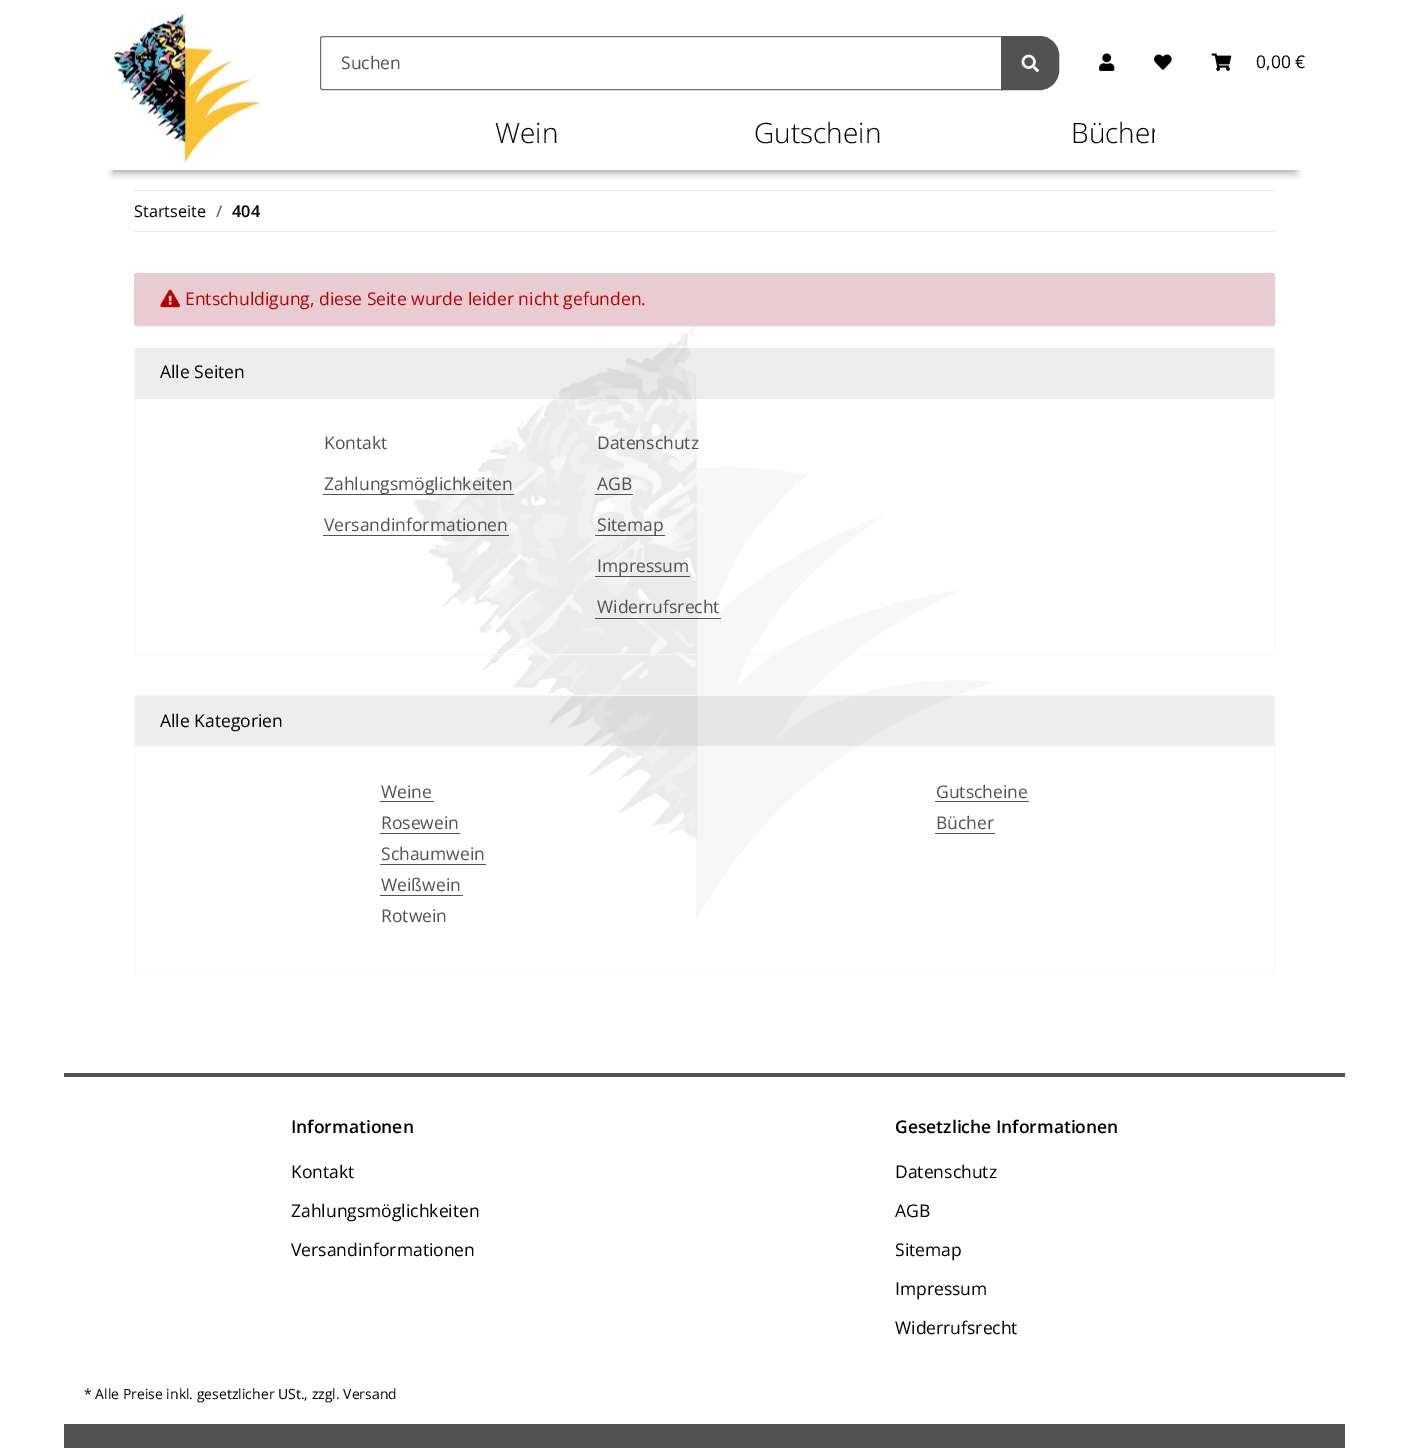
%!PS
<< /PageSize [1423 1448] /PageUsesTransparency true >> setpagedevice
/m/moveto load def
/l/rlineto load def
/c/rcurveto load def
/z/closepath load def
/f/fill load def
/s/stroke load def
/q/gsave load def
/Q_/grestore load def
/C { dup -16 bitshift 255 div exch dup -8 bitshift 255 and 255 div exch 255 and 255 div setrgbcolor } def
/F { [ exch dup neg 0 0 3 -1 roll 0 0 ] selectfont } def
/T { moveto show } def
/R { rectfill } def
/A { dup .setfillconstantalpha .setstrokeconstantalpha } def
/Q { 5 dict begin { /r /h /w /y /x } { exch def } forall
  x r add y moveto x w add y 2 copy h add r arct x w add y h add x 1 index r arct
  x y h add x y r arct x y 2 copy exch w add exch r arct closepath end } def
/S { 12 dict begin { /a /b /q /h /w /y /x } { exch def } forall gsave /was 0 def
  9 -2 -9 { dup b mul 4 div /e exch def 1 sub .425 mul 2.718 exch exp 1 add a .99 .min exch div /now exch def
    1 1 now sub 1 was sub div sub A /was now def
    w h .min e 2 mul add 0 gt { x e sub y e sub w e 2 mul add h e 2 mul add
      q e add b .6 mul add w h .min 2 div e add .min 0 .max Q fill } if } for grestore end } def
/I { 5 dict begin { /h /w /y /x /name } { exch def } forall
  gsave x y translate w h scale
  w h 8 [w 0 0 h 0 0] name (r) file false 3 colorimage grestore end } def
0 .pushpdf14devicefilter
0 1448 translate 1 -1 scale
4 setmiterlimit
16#FFFFFF C
0 0 1423 1448 R
q
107 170 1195 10 rectclip
16#525252 C
113 145 1183 28 0 4 .5 S
Q_
(1.rgb) 114 12 147 151 I
16#707070 C
322.5 36.5 m 680 0 l 0 53 l -680 0 l -1 0 -2 -1 -2 -2 c 0 -49 l 0 -1 1 -2 2 -2 c z s
/OpenSans-Regular 17.5 F
16#525252 C
(Suchen) 341 69 T
1001.5 36.5 m 38.5 0 l 10 0 18.5 8.5 18.5 18.5 c 0 16 l 0 10 -8.5 18.5 -18.5 18.5 c -38.5 0 l z q f Q_
s
(2.rgb) 1021 54 18 19 I
(3.rgb) 1099 53 16 18 I
(4.rgb) 1154 54 18 16 I
(5.rgb) 1211 53 21 18 I
16#000000 C
(0,00 €) 1256 68 T
/OpenSans-Light 28 F
(Wein) 495 143 T
(Gutschein) 754 143 T
q
1071 118 84 32 rectclip
(Bücher) 1071 143 T
Q_
(6.rgb) 414 326 582 593 I
16#EBEBEB C
134 190 1141 1 R
134 231 1141 1 R
/OpenSans-Regular 16.25 F
16#000000 C
(Startseite) 134 217 T
/OpenSans-SemiBold 16.25 F
16#707070 C
(/) 216 217 T
16#000000 C
(404) 232 217 T
16#E8CCD2 C
134.5 273.5 1140 52 2 Q q f Q_
s
(7.rgb) 160 289 20 19 I
/OpenSans-Regular 17.5 F
16#B90000 C
(Entschuldigung, diese Seite wurde leider nicht gefunden.) 185 305 T
16#F5F7FA C
134.5 346.5 1140 308 2 Q s
0.1 A
16#525252 C
135 348 1139 51 R
1 A
16#000000 C
(Alle Seiten) 160 378 T
16#525252 C
(Kontakt) 324 449 T
(Zahlungsmöglichkeiten) 324 490 T
323 494 191 1 R
(Versandinformationen) 324 531 T
323 535 186 1 R
(Datenschutz) 597 449 T
(AGB) 597 490 T
595 494 38 1 R
(Sitemap) 597 531 T
595 535 70 1 R
(Impressum) 597 572 T
595 576 95 1 R
(Widerrufsrecht) 597 613 T
595 618 126 1 R
16#F5F7FA C
134.5 695.5 1140 277 2 Q s
0.1 A
16#525252 C
135 696 1139 50 R
1 A
16#000000 C
(Alle Kategorien) 160 727 T
16#525252 C
(Weine) 381 798 T
380 801 54 1 R
(Rosewein) 381 829 T
380 833 80 1 R
(Schaumwein) 381 860 T
380 864 106 1 R
(Weißwein) 381 891 T
380 895 83 1 R
(Rotwein) 381 922 T
(Gutscheine) 936 798 T
935 801 94 1 R
(Bücher) 936 829 T
935 833 60 1 R
64 1073 1281 4 R
/OpenSans-SemiBold 17.5 F
16#000000 C
(Informationen) 291 1133 T
/OpenSans-Regular 17.5 F
(Kontakt) 291 1178 T
(Zahlungsmöglichkeiten) 291 1217 T
(Versandinformationen) 291 1256 T
/OpenSans-SemiBold 17.5 F
(Gesetzliche Informationen) 895 1133 T
/OpenSans-Regular 17.5 F
(Datenschutz) 895 1178 T
(AGB) 895 1217 T
(Sitemap) 895 1256 T
(Impressum) 895 1295 T
(Widerrufsrecht) 895 1334 T
/OpenSans-Regular 14 F
(* Alle Preise inkl. gesetzlicher USt., zzgl. Versand) 84 1399 T
16#525252 C
64 1424 1281 24 R
.poppdf14devicefilter showpage
